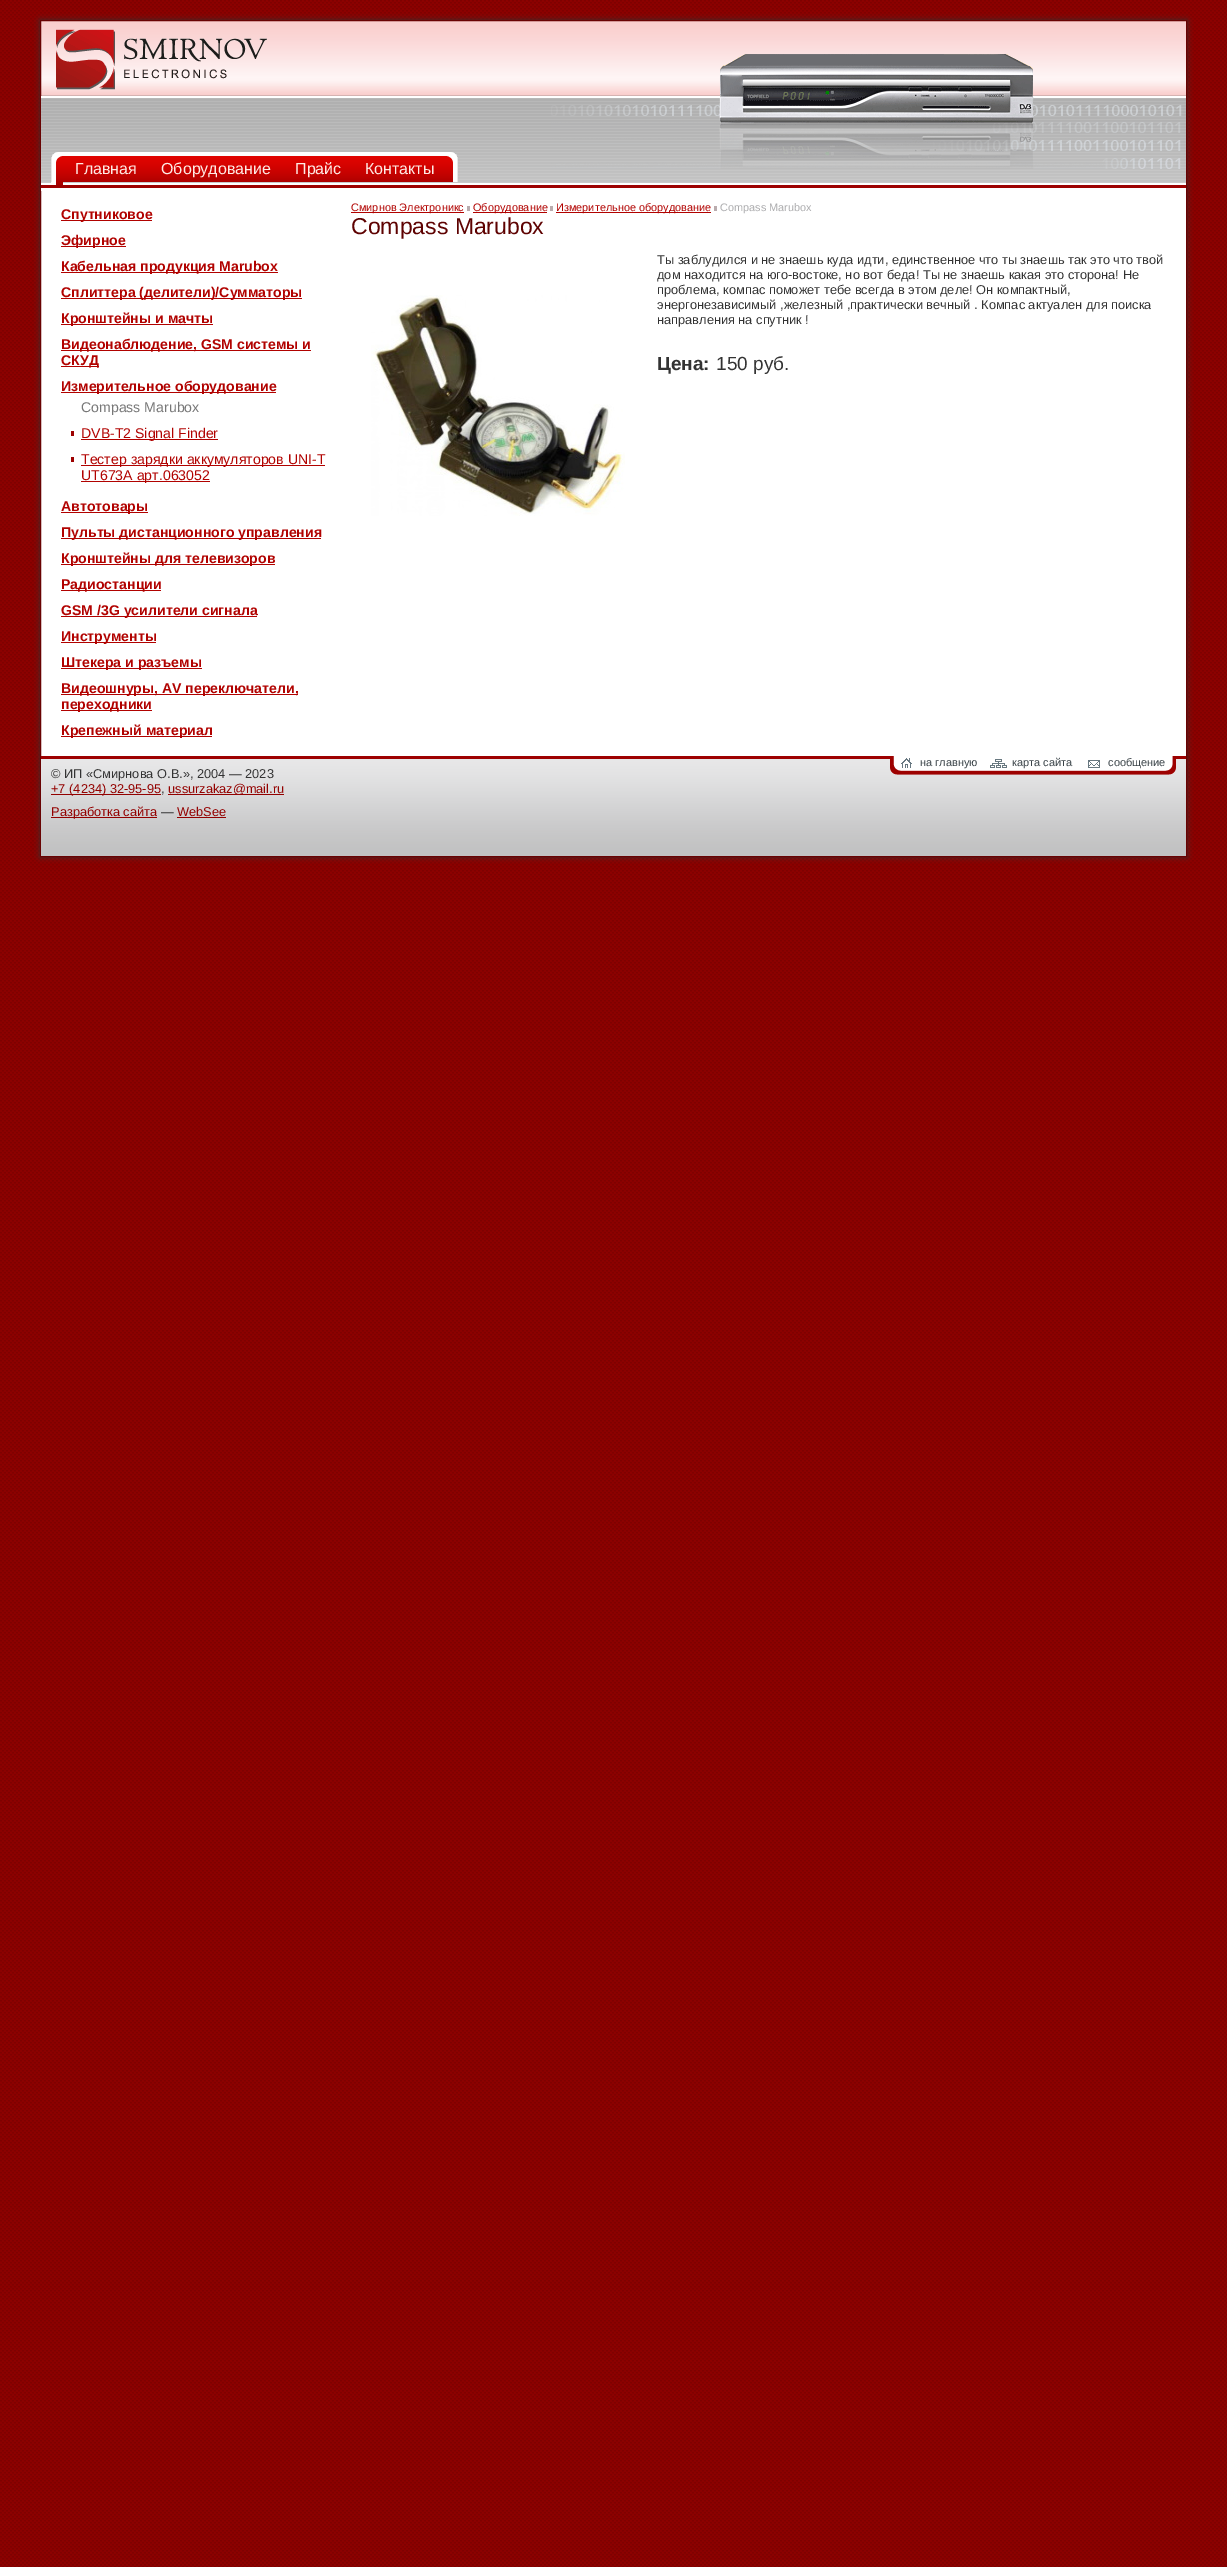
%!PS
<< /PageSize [1227 2567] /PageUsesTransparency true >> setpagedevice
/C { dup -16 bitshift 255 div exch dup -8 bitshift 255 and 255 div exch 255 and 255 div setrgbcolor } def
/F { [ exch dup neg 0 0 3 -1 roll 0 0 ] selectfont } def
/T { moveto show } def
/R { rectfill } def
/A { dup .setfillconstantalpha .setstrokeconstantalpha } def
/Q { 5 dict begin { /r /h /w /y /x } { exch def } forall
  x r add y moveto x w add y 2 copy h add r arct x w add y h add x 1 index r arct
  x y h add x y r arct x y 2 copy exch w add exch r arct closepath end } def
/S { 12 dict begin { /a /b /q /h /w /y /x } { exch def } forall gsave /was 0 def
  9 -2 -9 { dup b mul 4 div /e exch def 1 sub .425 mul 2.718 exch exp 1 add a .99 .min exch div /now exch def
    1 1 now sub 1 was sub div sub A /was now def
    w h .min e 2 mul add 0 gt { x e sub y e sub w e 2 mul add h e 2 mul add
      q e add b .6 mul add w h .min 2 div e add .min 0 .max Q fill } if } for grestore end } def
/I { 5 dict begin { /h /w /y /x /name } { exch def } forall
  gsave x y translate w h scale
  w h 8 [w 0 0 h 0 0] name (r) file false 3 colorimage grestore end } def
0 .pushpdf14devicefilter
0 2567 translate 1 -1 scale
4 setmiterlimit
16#FFFFFF C
0 0 1227 2567 R
(1.rgb) 0 0 1227 2567 I
16#333333 C
40 20 1147 837 0 3 1 S
16#FFFFFF C
41 191 1145 565 R
(2.rgb) 41 21 1145 75 I
16#680202 C
40.5 20.5 1146 836 rectstroke
(3.rgb) 720 54 313 42 I
(4.rgb) 56 29 211 61 I
(5.rgb) 41 96 1145 95 I
(6.rgb) 551 96 631 73 I
(7.rgb) 51 152 12 33 I
(8.rgb) 446 152 12 30 I
(9.rgb) 63 152 86 30 I
/LiberationSans-Regular 16 F
16#FFEBE5 C
(Главная) 75 174 T
(10.rgb) 149 152 134 30 I
(Оборудование) 161 174 T
(11.rgb) 283 152 70 30 I
(Прайс) 295 174 T
(12.rgb) 353 152 93 30 I
(Контакты) 365 174 T
16#B10200 C
61 220 91 1 R
/LiberationSans-Bold 14.1 F
(Спутниковое) 61 219 T
61 246 65 1 R
(Эфирное) 61 245 T
61 272 217 1 R
(Кабельная продукция Marubox) 61 271 T
61 298 241 1 R
(Сплиттера \(делители\)/Сумматоры) 61 297 T
61 324 152 1 R
(Кронштейны и мачты) 61 323 T
61 350 250 1 R
(Видеонаблюдение, GSM системы и) 61 349 T
61 366 38 1 R
(СКУД) 61 365 T
61 392 215 1 R
(Измерительное оборудование) 61 391 T
/LiberationSans-Regular 14.1 F
16#777777 C
(Compass Marubox) 81 412 T
16#9D0100 C
71 431 3 5 R
16#B10200 C
81 439 137 1 R
(DVB-T2 Signal Finder) 81 438 T
16#9D0100 C
71 457 3 5 R
16#B10200 C
81 465 244 1 R
(Тестер зарядки аккумуляторов UNI-T) 81 464 T
81 481 129 1 R
(UT673A арт.063052) 81 480 T
61 512 87 1 R
/LiberationSans-Bold 14.1 F
(Автотовары) 61 511 T
61 538 260 1 R
(Пульты дистанционного управления) 61 537 T
61 564 214 1 R
(Кронштейны для телевизоров) 61 563 T
61 590 100 1 R
(Радиостанции) 61 589 T
61 616 196 1 R
(GSM /3G усилители сигнала) 61 615 T
61 642 95 1 R
(Инструменты) 61 641 T
61 668 141 1 R
(Штекера и разъемы) 61 667 T
61 694 237 1 R
(Видеошнуры, AV переключатели,) 61 693 T
61 710 91 1 R
(переходники) 61 709 T
61 736 151 1 R
(Крепежный материал) 61 735 T
351 212 113 1 R
/LiberationSans-Regular 10.9 F
(Смирнов Электроникс) 351 211 T
16#BAACAE C
467 206 3 5 R
16#B10200 C
473 212 74 1 R
(Оборудование) 473 211 T
16#BAACAE C
550 206 3 5 R
16#B10200 C
556 212 155 1 R
(Измерительное оборудование) 556 211 T
16#BAACAE C
714 206 3 5 R
16#ACACAE C
(Compass Marubox) 720 211 T
/LiberationSans-Regular 23 F
16#5E0201 C
(Compass Marubox) 351 234 T
/LiberationSans-Regular 12.8 F
16#333333 C
(Ты заблудился и не знаешь куда идти, единственное что ты знаешь так это что твой) 657 264 T
(дом находится на юго-востоке, но вот беда! Ты не знаешь какая это сторона! Не) 657 279 T
(проблема, компас поможет тебе всегда в этом деле! Он компактный,) 657 294 T
(13.rgb) 371 295 254 221 I
(энергонезависимый ,железный ,практически вечный . Компас актуален для поиска) 657 309 T
(направления на спутник !) 657 324 T
/LiberationSans-Bold 19 F
(Цена:) 657 370 T
/LiberationSans-Regular 19 F
(150 руб.) 716 370 T
(14.rgb) 41 756 1145 100 I
(15.rgb) 890 756 286 19 I
(16.rgb) 901 758 11 10 I
/LiberationSans-Regular 11 F
16#394247 C
(на главную) 920 766 T
(17.rgb) 990 759 17 9 I
(карта сайта) 1012 766 T
(18.rgb) 1088 760 12 8 I
(сообщение) 1108 766 T
/LiberationSans-Regular 12.8 F
16#333333 C
(© ИП «Смирнова О.В.», 2004 — 2023) 51 778 T
16#930100 C
51 794 110 1 R
(+7 \(4234\) 32-95-95) 51 793 T
16#333333 C
(,) 161 793 T
16#930100 C
168 794 116 1 R
(ussurzakaz@mail.ru) 168 793 T
51 817 106 1 R
(Разработка сайта) 51 816 T
16#333333 C
(—) 161 816 T
16#930100 C
(WebSee) 177 816 T
177 817 49 1 R
.poppdf14devicefilter showpage
